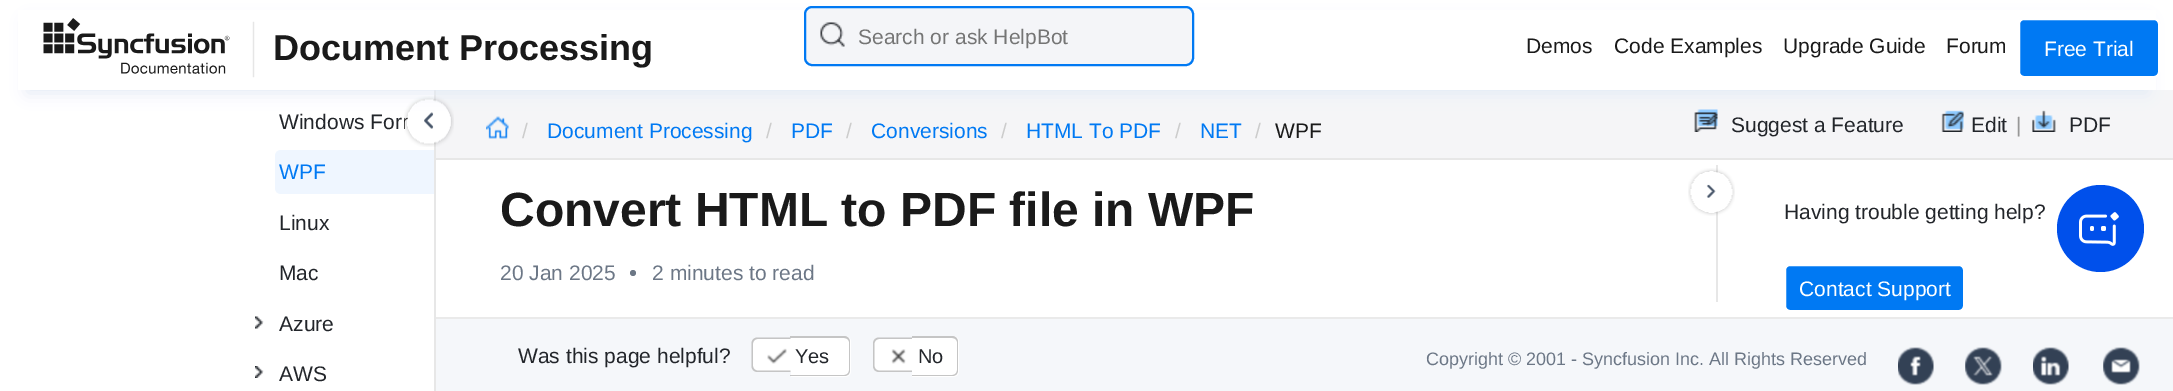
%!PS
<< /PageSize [2173 391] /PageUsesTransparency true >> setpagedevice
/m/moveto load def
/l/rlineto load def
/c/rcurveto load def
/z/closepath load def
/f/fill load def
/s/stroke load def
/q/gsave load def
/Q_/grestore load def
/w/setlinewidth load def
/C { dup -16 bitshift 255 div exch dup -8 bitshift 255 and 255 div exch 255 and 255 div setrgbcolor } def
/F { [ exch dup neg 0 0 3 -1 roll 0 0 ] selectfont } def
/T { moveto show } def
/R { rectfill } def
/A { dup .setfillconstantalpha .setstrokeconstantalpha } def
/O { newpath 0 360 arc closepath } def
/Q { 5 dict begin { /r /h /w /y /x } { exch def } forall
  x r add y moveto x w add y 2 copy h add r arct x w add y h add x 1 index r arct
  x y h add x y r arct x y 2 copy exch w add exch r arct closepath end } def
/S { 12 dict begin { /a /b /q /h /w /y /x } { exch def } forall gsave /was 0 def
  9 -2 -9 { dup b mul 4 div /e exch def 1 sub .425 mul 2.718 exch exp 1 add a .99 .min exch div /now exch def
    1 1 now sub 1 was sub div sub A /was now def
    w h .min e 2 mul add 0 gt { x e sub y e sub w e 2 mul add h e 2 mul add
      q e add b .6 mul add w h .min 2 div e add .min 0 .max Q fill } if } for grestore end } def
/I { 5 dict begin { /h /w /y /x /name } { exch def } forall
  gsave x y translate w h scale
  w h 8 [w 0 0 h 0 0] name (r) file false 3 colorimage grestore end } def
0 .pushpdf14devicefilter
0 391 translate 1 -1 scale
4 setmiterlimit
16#FFFFFF C
0 0 2173 391 R
16#F5F5F7 C
436 90 1737 68 R
(3.rgb) 486 116 23 23 I
(4.rgb) 1694 109 24 23 I
(5.rgb) 1941 110 23 22 I
(6.rgb) 2032 110 24 22 I
16#E7E7E7 C
434 90 2 301 R
(9.rgb) 404 96 50 51 I
16#E2EAF5 C
27 21 2120 72 0 8 1 S
16#FFFFFF C
18 10 2138 80 R
(1.rgb) 43 18 212 60 I
/LiberationSans-Bold 36 F
16#1A1A1A C
(Document Processing) 273 60 T
16#F4F5F8 C
804 6 390 60 8 Q f
(2.rgb) 820 22 25 25 I
16#0079F3 C
2 w
805 7 388 58 7 Q s
/LiberationSans-Regular 21 F
16#757575 C
(Search or ask HelpBot) 858 44 T
16#1A1A1A C
(Demos) 1526 53 T
(Code Examples) 1614 53 T
(Upgrade Guide) 1783 53 T
(Forum) 1946 53 T
16#0079F3 C
2019 19 140 58 5 Q q f Q_
16#FFFFFF C
s
(Free Trial) 2044 56 T
16#E7E7E7 C
436 158 1737 2 R
16#CCCCCC C
(/) 522 138 T
16#0079F3 C
(Document Processing) 547 138 T
16#CCCCCC C
(/) 766 138 T
16#0079F3 C
(PDF) 791 138 T
16#CCCCCC C
(/) 846 138 T
16#0079F3 C
(Conversions) 871 138 T
16#CCCCCC C
(/) 1001 138 T
16#0079F3 C
(HTML To PDF) 1026 138 T
16#CCCCCC C
(/) 1175 138 T
16#0079F3 C
(NET) 1200 138 T
16#CCCCCC C
(/) 1255 138 T
16#1A1A1A C
(WPF) 1275 138 T
16#22252A C
(Suggest a Feature) 1731 132 T
(Edit) 1971 132 T
16#979797 C
(|) 2016 132 T
16#22252A C
(PDF) 2069 132 T
(Windows For) 279 129 T
16#EFF6FF C
281 150 m 153 0 l 0 44 l -153 0 l -3.5 0 -6 -2.5 -6 -6 c 0 -32 l 0 -3.5 2.5 -6 6 -6 c z f
16#0079F3 C
(WPF) 279 179 T
16#22252A C
(Linux) 279 230 T
(Mac) 279 280 T
(7.rgb) 255 316 9 13 I
(Azure) 279 331 T
(8.rgb) 255 366 9 12 I
(AWS) 279 381 T
16#E7E7E7 C
1716 165 2 137 R
/LiberationSans-Bold 48 F
16#1A1A1A C
(Convert HTML to PDF file in WPF) 500 226 T
/LiberationSans-Regular 21 F
16#6C7786 C
(20 Jan 2025) 500 280 T
633 273 3 O f
(2 minutes to read) 652 280 T
(10.rgb) 1688 168 47 48 I
16#22252A C
(Having trouble getting help?) 1784 219 T
16#0079F3 C
1785 265 179 46 5 Q q f Q_
16#FFFFFF C
s
(Contact Support) 1799 296 T
16#0050EB C
2100.5 228.5 43.5 O f
(11.rgb) 2079 212 40 34 I
16#F5F7FA C
436 319 1737 72 R
16#EAEAEA C
436 317 1737 2 R
16#22252A C
(Was this page helpful?) 518 363 T
16#FFFFFF C
758 338 m 33 0 l 0 34 l -33 0 l -3.5 0 -6 -2.5 -6 -6 c 0 -22 l 0 -3.5 2.5 -6 6 -6 c z f
16#C5C5C5 C
757.5 337.5 m 33 0 l 0 34.5 l -33 0 l -3.5 0 -6 -2.5 -6 -6 c 0 -22.5 l 0 -3.5 2.5 -6 6 -6 c z 757.5 339 m 33 0 l 0 31.5 l -33 0 l -2.5 0 -4.5 -2 -4.5 -4.5 c 0 -22.5 l 0 -2.5 2 -4.5 4.5 -4.5 c z eofill
16#FFFFFF C
791 336 m 54 0 l 3.5 0 6 2.5 6 6 c 0 29 l 0 3.5 -2.5 6 -6 6 c -54 0 l z f
16#C5C5C5 C
790 336 m 54 0 l 4 0 6 3 6 6 c 0 28 l 0 4 -2 6 -6 6 c -54 0 l z 790 338 m 54 0 l 3 0 5 2 5 4 c 0 28 l 0 3 -2 5 -5 5 c -54 0 l z eofill
(12.rgb) 767 348 20 16 I
/LiberationSans-Regular 20 F
16#22252A C
(Yes) 795 363 T
16#FFFFFF C
879 338 m 33 0 l 0 34 l -33 0 l -3.5 0 -6 -2.5 -6 -6 c 0 -22 l 0 -3.5 2.5 -6 6 -6 c z f
16#C5C5C5 C
879 337.5 m 33 0 l 0 34.5 l -33 0 l -3.5 0 -6 -2.5 -6 -6 c 0 -22.5 l 0 -3.5 2.5 -6 6 -6 c z 879 339 m 33 0 l 0 31.5 l -33 0 l -2.5 0 -4.5 -2 -4.5 -4.5 c 0 -22.5 l 0 -2.5 2 -4.5 4.5 -4.5 c z eofill
16#FFFFFF C
912 336 m 41 0 l 3.5 0 6 2.5 6 6 c 0 29 l 0 3.5 -2.5 6 -6 6 c -41 0 l z f
16#C5C5C5 C
912 336 m 40 0 l 4 0 6 3 6 6 c 0 28 l 0 4 -2 6 -6 6 c -40 0 l z 912 338 m 40 0 l 3 0 5 2 5 4 c 0 28 l 0 3 -2 5 -5 5 c -40 0 l z eofill
(13.rgb) 891 349 15 15 I
16#22252A C
(No) 918 363 T
/LiberationSans-Regular 18 F
16#6C7786 C
(Copyright © 2001 - Syncfusion Inc. All Rights Reserved) 1426 365 T
(14.rgb) 1898 347 36 38 I
(15.rgb) 1965 347 37 38 I
(16.rgb) 2033 347 36 38 I
(17.rgb) 2103 347 37 38 I
.poppdf14devicefilter showpage
